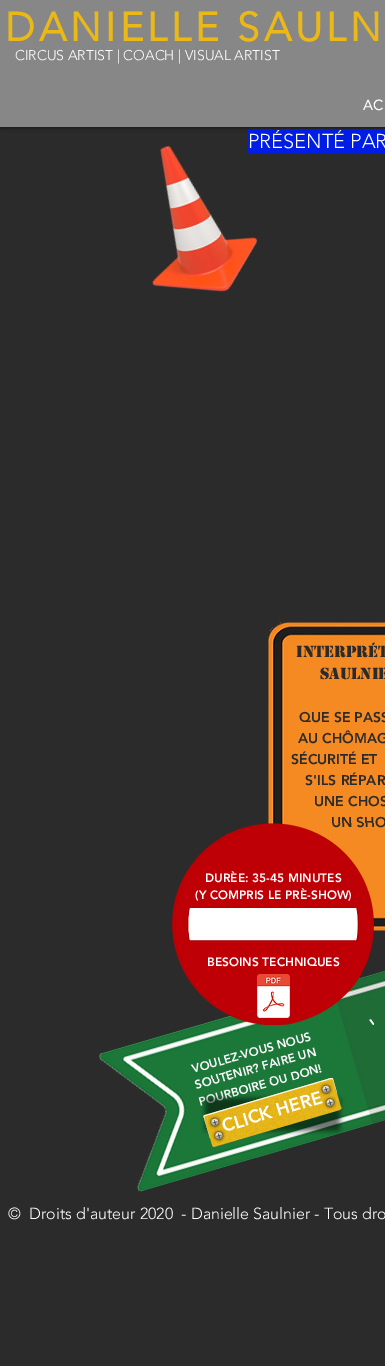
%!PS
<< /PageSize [385 1366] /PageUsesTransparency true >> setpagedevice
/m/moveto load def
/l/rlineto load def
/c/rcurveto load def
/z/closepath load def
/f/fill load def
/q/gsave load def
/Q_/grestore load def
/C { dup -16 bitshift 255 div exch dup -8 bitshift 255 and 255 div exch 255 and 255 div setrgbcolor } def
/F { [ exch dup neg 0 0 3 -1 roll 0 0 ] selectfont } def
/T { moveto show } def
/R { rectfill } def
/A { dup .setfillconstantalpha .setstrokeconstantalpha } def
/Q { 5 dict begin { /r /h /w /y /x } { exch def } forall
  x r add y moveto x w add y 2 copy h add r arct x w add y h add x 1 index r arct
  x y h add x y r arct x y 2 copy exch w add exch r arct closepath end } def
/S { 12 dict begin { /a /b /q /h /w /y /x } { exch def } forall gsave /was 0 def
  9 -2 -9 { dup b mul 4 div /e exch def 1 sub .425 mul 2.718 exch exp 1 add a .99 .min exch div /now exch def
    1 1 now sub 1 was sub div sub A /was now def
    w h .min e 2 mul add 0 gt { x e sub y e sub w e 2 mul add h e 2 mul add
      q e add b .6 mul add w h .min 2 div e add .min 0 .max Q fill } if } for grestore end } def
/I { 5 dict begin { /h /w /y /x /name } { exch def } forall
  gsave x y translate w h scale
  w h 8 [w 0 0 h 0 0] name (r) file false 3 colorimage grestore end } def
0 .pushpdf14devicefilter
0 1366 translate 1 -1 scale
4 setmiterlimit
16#2B2B2B C
0 0 385 1366 R
16#000000 C
0 0 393 127 0 2.5 .7 S
16#878787 C
0 0 385 127 R
/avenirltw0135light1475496-Bold 40 F
16#EBB917 C
5 41 m 4 0 (DANIELLE SAULN) ashow
/avenirltw0135light1475496-Bold 14 F
16#FFFFFF C
(AC) 363 110 T
/avenirltw0135light1475496-Light 14 F
(CIRCUS ARTIST | COACH | VISUAL ARTIST) 15 60 T
16#001DE6 C
248 129 137 24 R
/avenirltw0135light1475496-Light 20 F
16#FFFFFF C
(PRÉSENTÉ PAR) 248 148 T
(1.rgb) 152 145 106 147 I
(2.rgb) 267 622 118 309 I
/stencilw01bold-Bold 15 F
16#2B2B2B C
(INTERPRÉT) 296 657 T
(SAULNIE) 320 679 T
/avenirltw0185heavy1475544-Black 14 F
(QUE SE PASS) 299 722 T
(AU CHÔMAG) 298 743 T
(SÉCURITÉ ET) 291 764 T
(S'ILS RÉPAR) 305 785 T
(UNE CHOS) 314 806 T
(UN SHO) 331 827 T
(4.rgb) 99 970 286 222 I
(3.rgb) 172 823 202 202 I
/avenirltw0185heavy1475544-Black 12 F
16#FFFFFF C
(DURÈE: 35-45 MINUTES) 205 882 T
(\(Y COMPRIS LE PRÈ-SHOW\)) 195 899 T
(BESOINS TECHNIQUES) 207 966 T
(5.rgb) 257 974 33 44 I
q 193 1073 translate -15.5 rotate 0 0 m (VOULEZ-VOUS NOUS) show Q_
q 196 1089 translate -15.5 rotate 0 0 m (SOUTENIR? FAIRE UN) show Q_
q 200 1106 translate -15.5 rotate 0 0 m (POURBOIRE OU DON!) show Q_
16#000000 C
205 1098 135 33 2 2.5 .53 S
16#EBB917 C
205 1115 m 126 -37 l 1 0 2 0 2 1 c 8 28 l 1 1 0 2 -1 3 c -126 37 l -1 0 -2 -1 -2 -2 c -8 -27 l -1 -2 0 -3 1 -3 c z f
(6.rgb) 204 1079 137 68 I
0.92 A
16#FFFFFF C
205 1116 m 126 -37 l 1 0 2 0 2 1 c 4 13 l -4 -14 l 0 -1 -1 -1 -2 -1 c -126 37 l -1 0 -2 1 -1 3 c 6 20 l -5 -17 -7 -22 -5 -22 c z f
1 A
(7.rgb) 319 1082 14 15 I
(9.rgb) 208 1115 14 14 I
(10.rgb) 212 1128 14 15 I
/avenirltw0185heavy1475544-Black 18 F
q 224 1132 translate -16.5 rotate 0 0 m (CLICK HERE) show Q_
(8.rgb) 323 1096 14 14 I
/avenirltw0135light1475496-Light 16 F
(©  Droits d'auteur 2020  - Danielle Saulnier - Tous dro) 8 1219 T
.poppdf14devicefilter showpage
